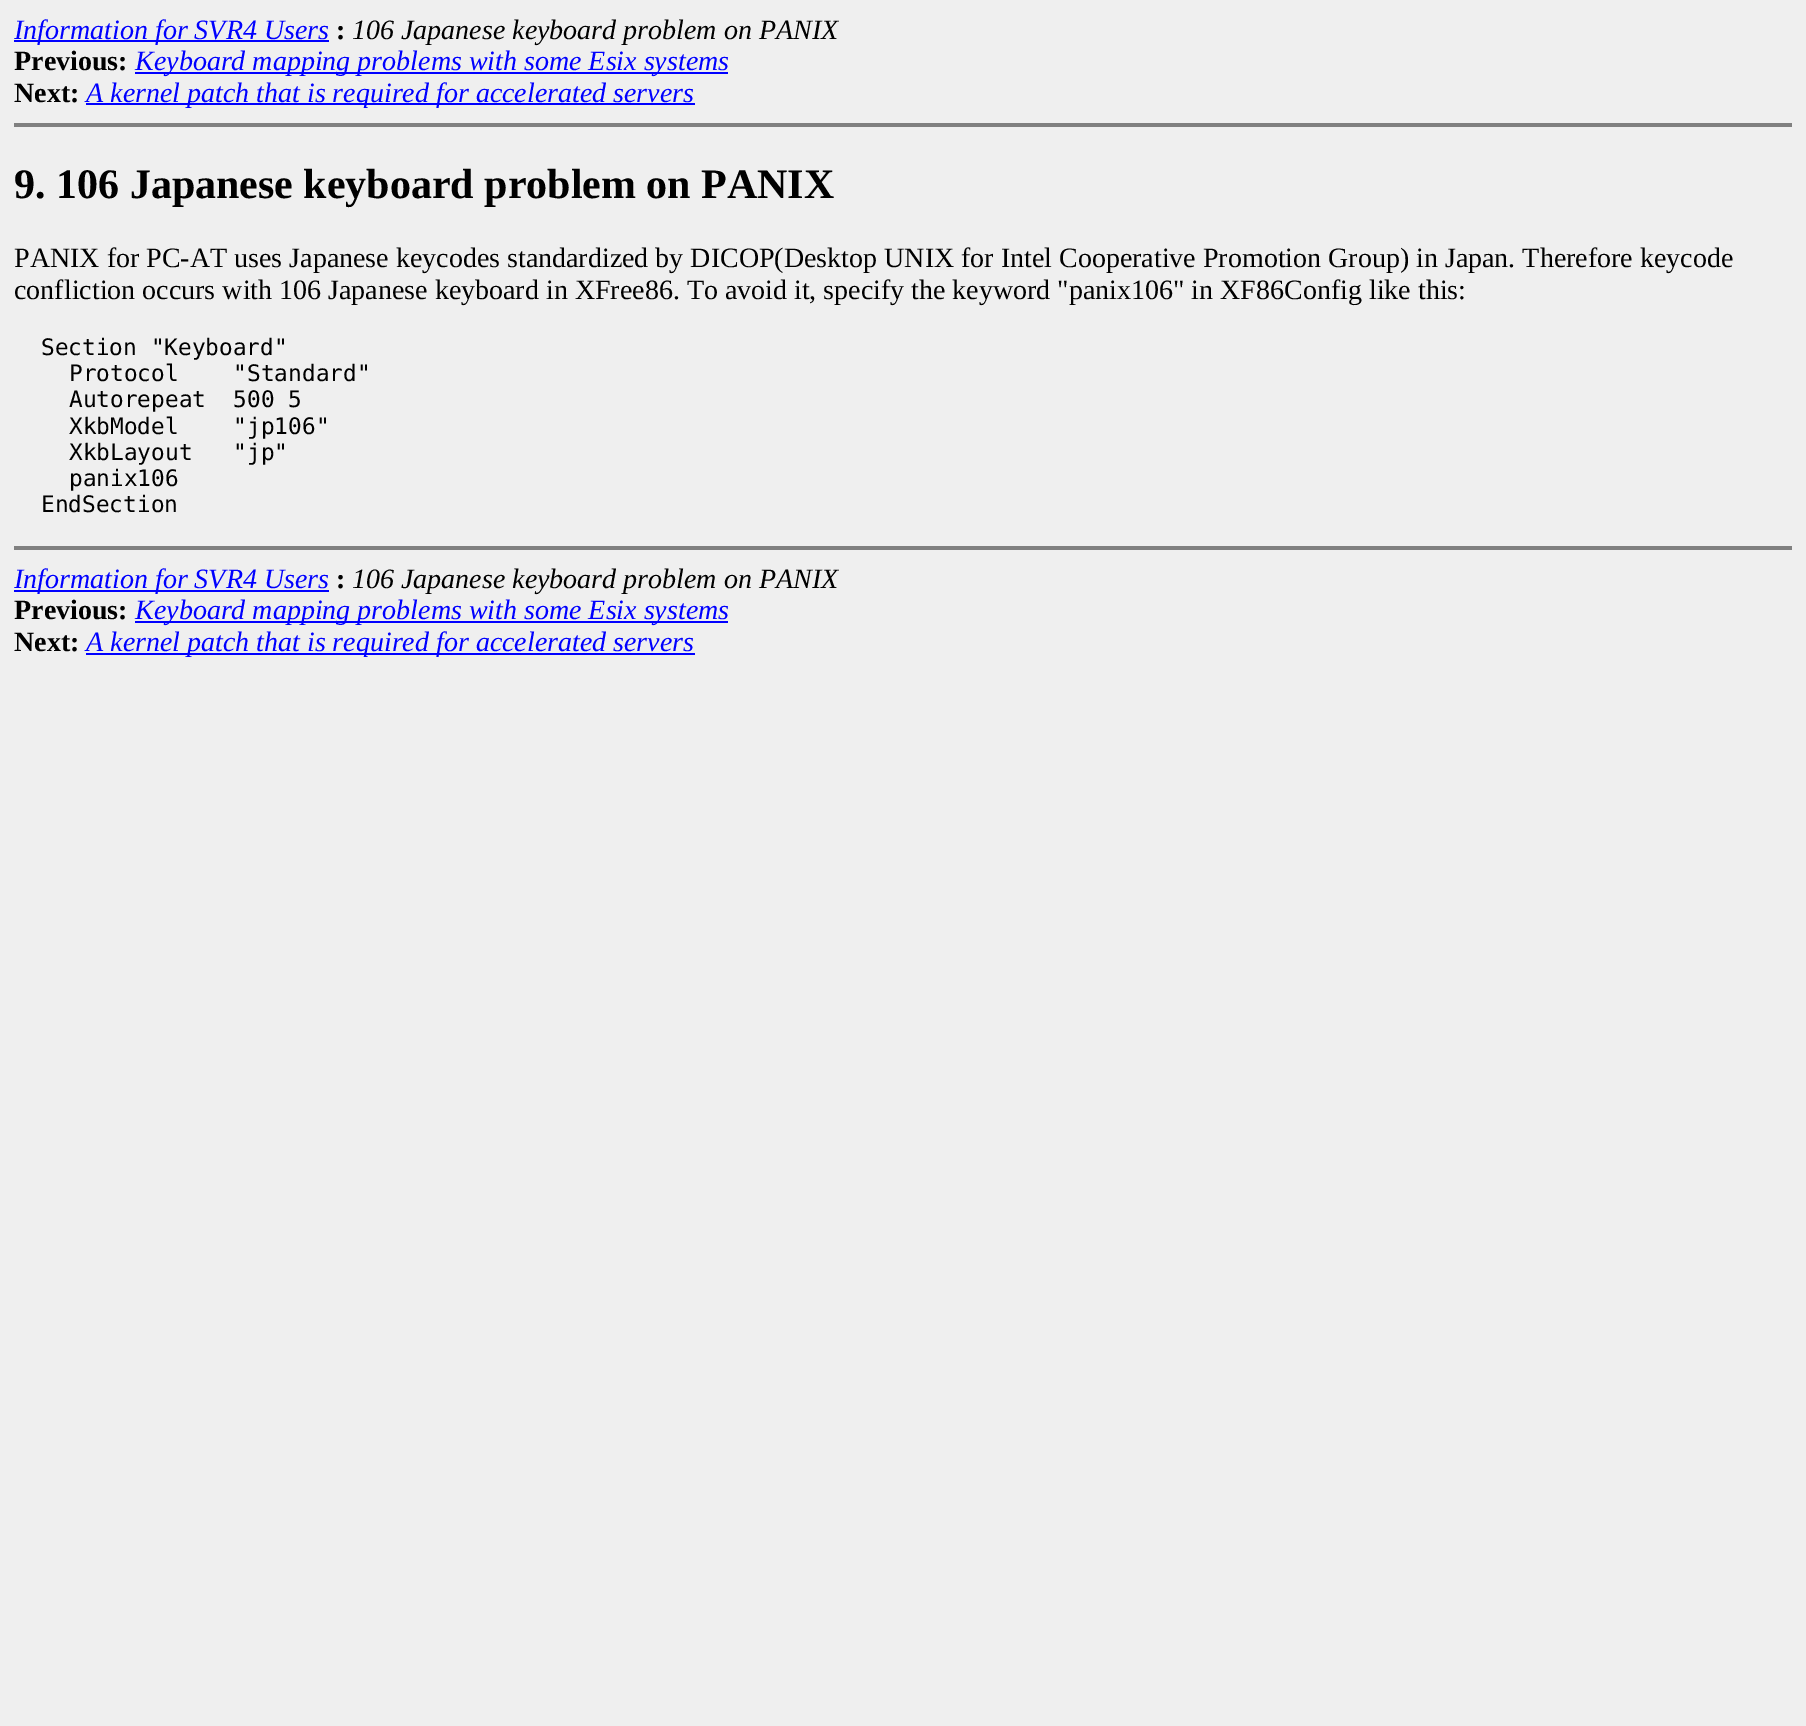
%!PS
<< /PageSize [1806 1726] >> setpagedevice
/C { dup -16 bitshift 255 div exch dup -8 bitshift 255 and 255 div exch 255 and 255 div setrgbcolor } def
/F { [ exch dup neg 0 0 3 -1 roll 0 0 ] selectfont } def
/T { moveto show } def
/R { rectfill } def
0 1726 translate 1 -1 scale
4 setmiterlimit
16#EFEFEF C
0 0 1806 1726 R
16#0000FF C
14 40 315 2 R
/LiberationSerif-Italic 28 F
(Information for SVR4 Users) 14 39 T
/LiberationSerif-Bold 28 F
16#000000 C
(:) 336 39 T
/LiberationSerif-Italic 28 F
(106 Japanese keyboard problem on PANIX) 352 39 T
/LiberationSerif-Bold 28 F
(Previous:) 14 70 T
16#0000FF C
135 72 593 2 R
/LiberationSerif-Italic 28 F
(Keyboard mapping problems with some Esix systems) 135 70 T
/LiberationSerif-Bold 28 F
16#000000 C
(Next:) 14 102 T
16#0000FF C
86 103 609 2 R
/LiberationSerif-Italic 28 F
(A kernel patch that is required for accelerated servers) 86 102 T
16#808080 C
14 123 1778 4 R
/LiberationSerif-Bold 42 F
16#000000 C
(9. 106 Japanese keyboard problem on PANIX) 14 198 T
/LiberationSerif-Regular 28 F
(PANIX for PC-AT uses Japanese keycodes standardized by DICOP\(Desktop UNIX for Intel Cooperative Promotion Group\) in Japan. Therefore keycode) 14 267 T
(confliction occurs with 106 Japanese keyboard in XFree86. To avoid it, specify the keyword "panix106" in XF86Config like this:) 14 299 T
/DejaVuSansMono-Regular 22.75 F
(Section "Keyboard") 41 355 T
(Protocol    "Standard") 69 381 T
(Autorepeat  500 5) 69 407 T
(XkbModel    "jp106") 69 434 T
(XkbLayout   "jp") 69 460 T
(panix106) 69 486 T
(EndSection) 41 512 T
16#808080 C
14 546 1778 4 R
16#0000FF C
14 590 315 2 R
/LiberationSerif-Italic 28 F
(Information for SVR4 Users) 14 588 T
/LiberationSerif-Bold 28 F
16#000000 C
(:) 336 588 T
/LiberationSerif-Italic 28 F
(106 Japanese keyboard problem on PANIX) 352 588 T
/LiberationSerif-Bold 28 F
(Previous:) 14 619 T
16#0000FF C
135 621 593 2 R
/LiberationSerif-Italic 28 F
(Keyboard mapping problems with some Esix systems) 135 619 T
/LiberationSerif-Bold 28 F
16#000000 C
(Next:) 14 651 T
16#0000FF C
86 653 609 2 R
/LiberationSerif-Italic 28 F
(A kernel patch that is required for accelerated servers) 86 651 T
showpage
